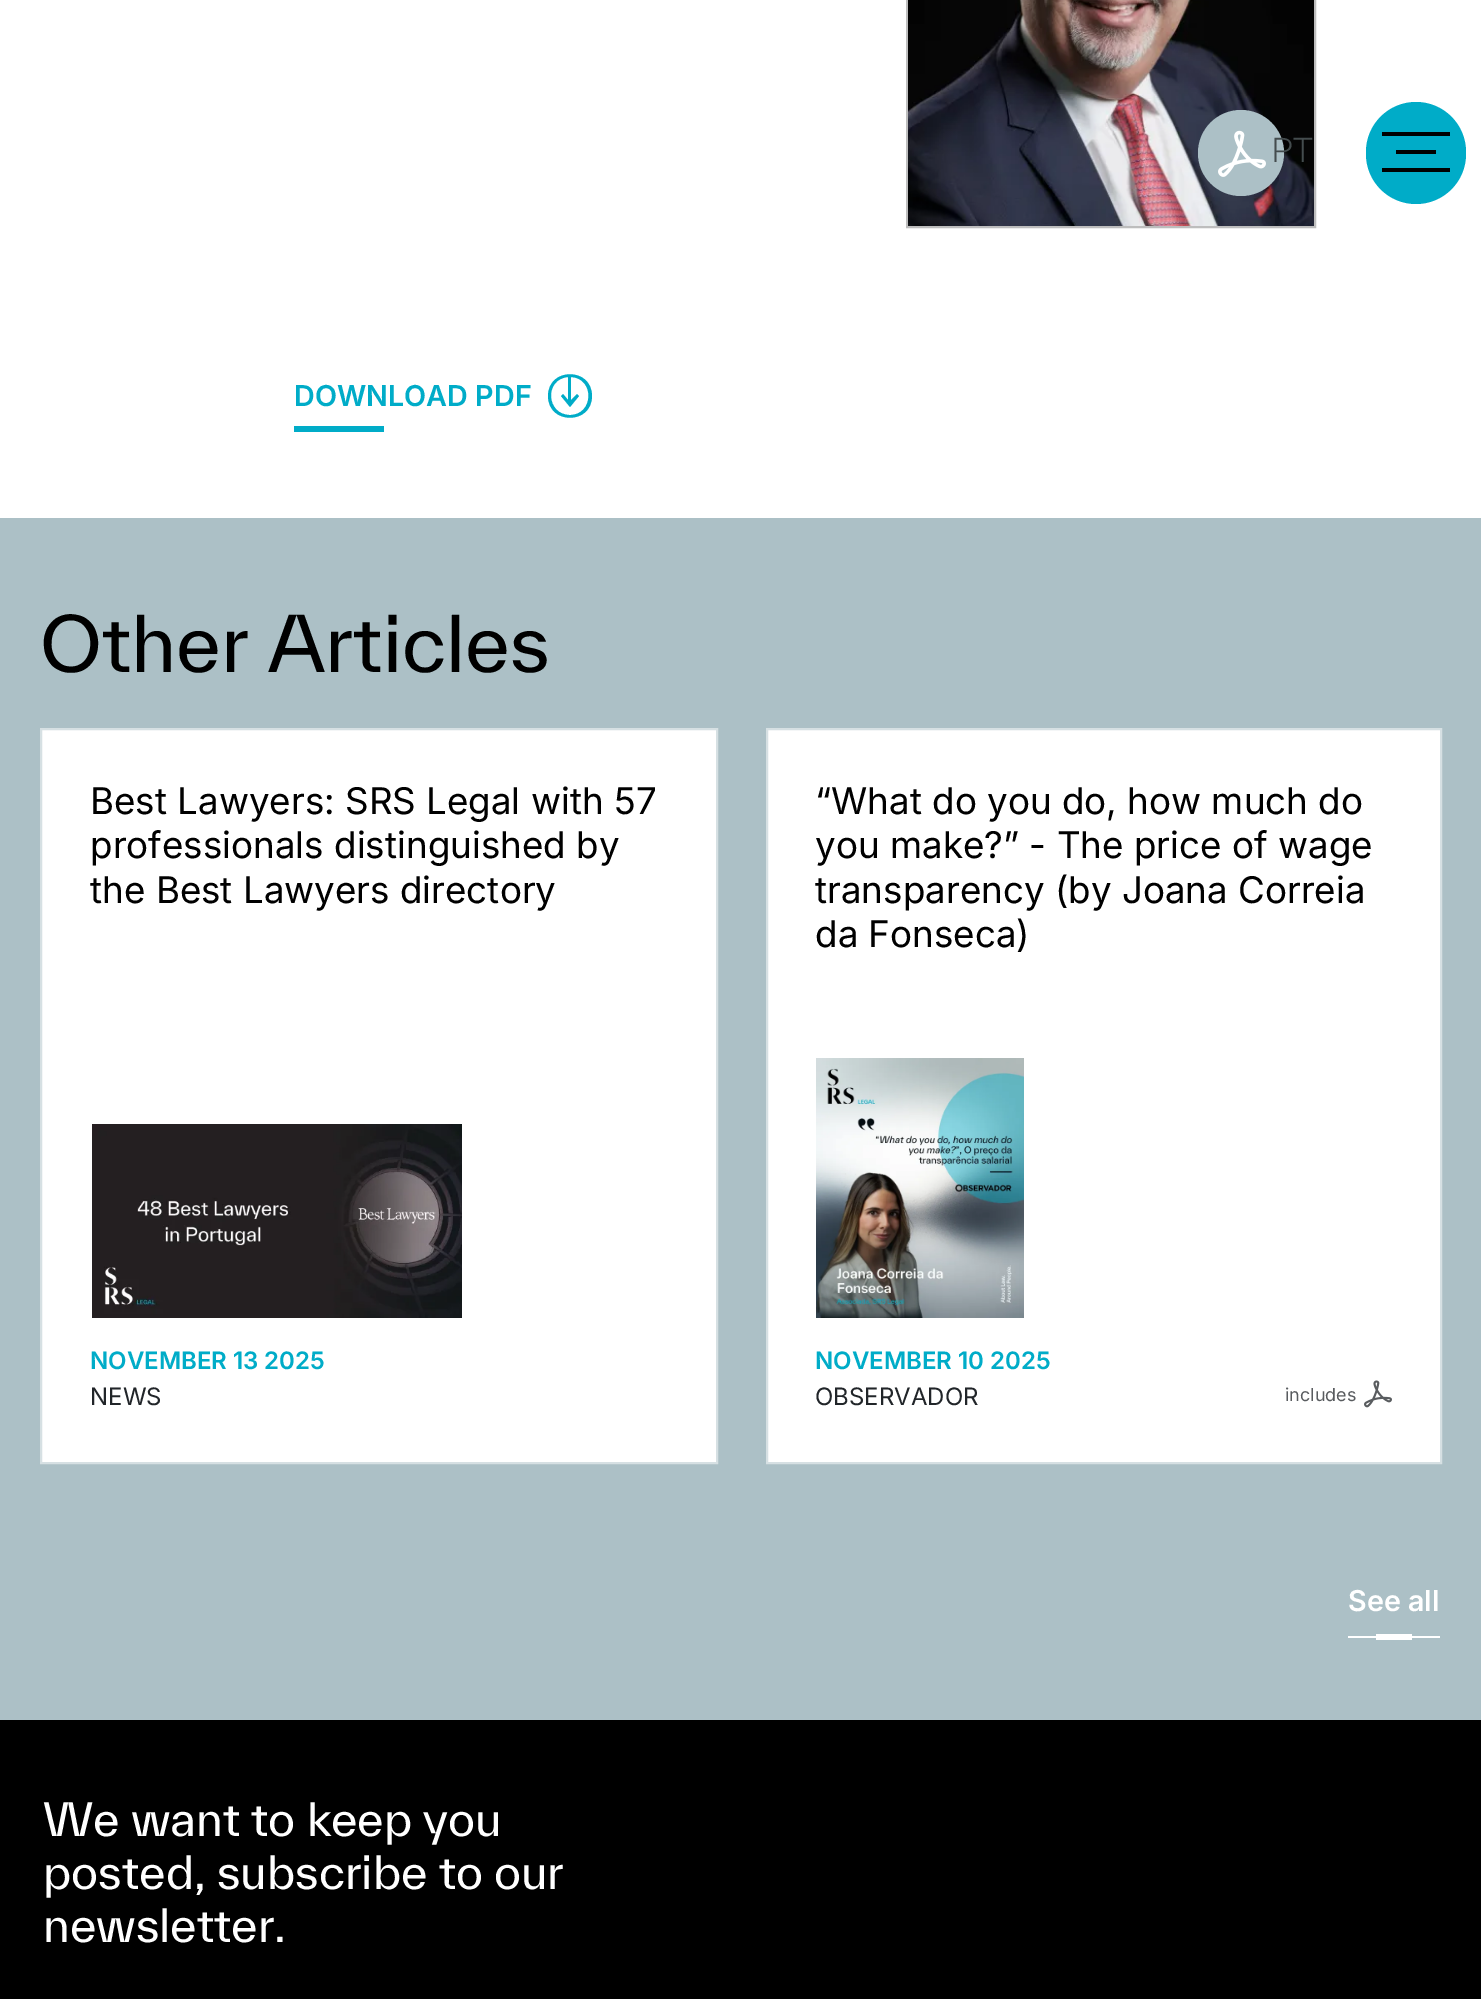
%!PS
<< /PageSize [1481 1999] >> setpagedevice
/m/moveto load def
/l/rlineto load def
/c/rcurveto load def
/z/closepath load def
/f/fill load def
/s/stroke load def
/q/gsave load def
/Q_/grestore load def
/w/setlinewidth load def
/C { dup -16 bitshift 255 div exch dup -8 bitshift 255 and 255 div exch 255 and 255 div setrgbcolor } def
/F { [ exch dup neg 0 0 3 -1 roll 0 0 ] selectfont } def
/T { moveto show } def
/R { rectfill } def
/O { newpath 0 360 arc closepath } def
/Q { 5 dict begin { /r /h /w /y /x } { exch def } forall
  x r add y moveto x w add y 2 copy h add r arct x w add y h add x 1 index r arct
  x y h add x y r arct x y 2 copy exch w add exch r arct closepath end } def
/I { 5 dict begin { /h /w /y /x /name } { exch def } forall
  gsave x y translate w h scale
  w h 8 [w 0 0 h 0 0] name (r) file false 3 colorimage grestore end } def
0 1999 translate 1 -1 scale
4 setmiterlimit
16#FFFFFF C
0 0 1481 1999 R
16#BDBDBD C
2 w
907 -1 408 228 rectstroke
(1.rgb) 908 0 406 226 I
16#ACC0C6 C
1241 153 43 O f
/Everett-Light 35 F
16#444C4E C
(PT) 1271 162 T
16#00ACC8 C
1366 102 100 102 50 Q f
16#000000 C
1382 132 68 4 R
1396 150 40 4 R
1382 168 68 4 R
(2.rgb) 1218 130 48 47 I
/Inter-SemiBold 28.75 F
16#00ACC8 C
(DOWNLOAD PDF) 294 406 T
592 396 m 0 -29 -44 -29 -44 0 c 0 29 44 29 44 0 c z 571 377 m 0 23 l 6 -6 l 2 2 l -9 11 l -9 -11 l 2 -2 l 5 6 l 0 -23 l -24 2 -22 38 2 38 c 24 0 25 -37 1 -38 c z eofill
294 426 90 6 R
16#ACC0C6 C
0 518 1481 1202 R
/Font-Regular 75.25 F
16#000000 C
(Other Articles) 40 672 T
16#FFFFFF C
41 729 m 676 0 l 0 734 l -676 0 l z q f Q_
16#D6E0E3 C
s
/Inter-Regular 36.75 F
16#000000 C
(Best Lawyers: SRS Legal with 57) 90 814 T
(professionals distinguished by) 90 858 T
(the Best Lawyers directory) 90 903 T
(3.rgb) 92 1124 370 194 I
/Inter-SemiBold 24 F
16#00ACC8 C
(NOVEMBER 13 2025) 90 1369 T
/Inter-Regular 24 F
16#212529 C
(NEWS) 90 1405 T
16#FFFFFF C
767 729 m 674 0 l 0 734 l -674 0 l z q f Q_
16#D6E0E3 C
s
/Inter-Regular 36.75 F
16#000000 C
(“What do you do, how much do) 815 814 T
(you make?” - The price of wage) 815 858 T
(transparency \(by Joana Correia) 815 903 T
(da Fonseca\)) 815 947 T
(4.rgb) 816 1058 208 260 I
/Inter-SemiBold 24 F
16#00ACC8 C
(NOVEMBER 10 2025) 815 1369 T
/Inter-Regular 24 F
16#212529 C
(OBSERVADOR) 815 1405 T
/Inter-Regular 18 F
16#595C5F C
(includes) 1285 1401 T
(5.rgb) 1364 1380 28 28 I
/Inter-SemiBold 28.75 F
16#FFFFFF C
(See all) 1348 1611 T
1348 1636 92 2 R
1376 1634 36 6 R
16#000000 C
0 1720 1481 279 R
/Font-Regular 44.4 F
16#FFFFFF C
(We want to keep you) 43 1836 T
(posted, subscribe to our) 43 1889 T
(newsletter.) 43 1942 T
showpage
